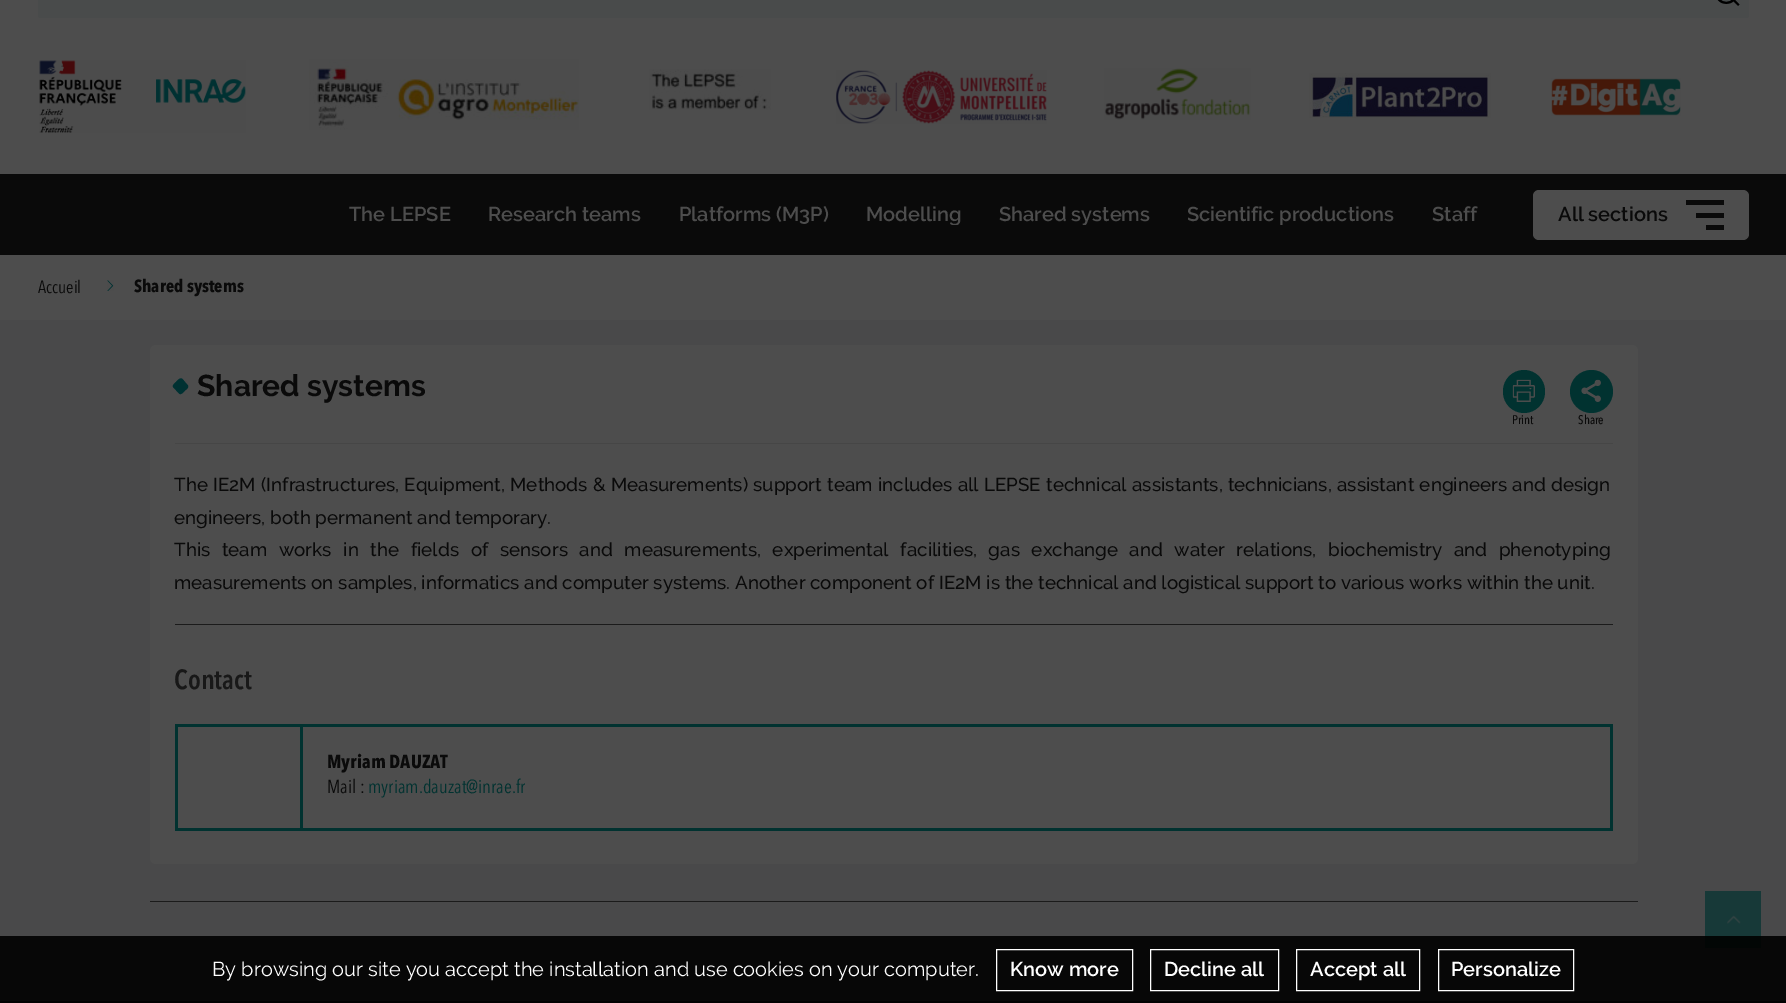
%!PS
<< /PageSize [1786 1003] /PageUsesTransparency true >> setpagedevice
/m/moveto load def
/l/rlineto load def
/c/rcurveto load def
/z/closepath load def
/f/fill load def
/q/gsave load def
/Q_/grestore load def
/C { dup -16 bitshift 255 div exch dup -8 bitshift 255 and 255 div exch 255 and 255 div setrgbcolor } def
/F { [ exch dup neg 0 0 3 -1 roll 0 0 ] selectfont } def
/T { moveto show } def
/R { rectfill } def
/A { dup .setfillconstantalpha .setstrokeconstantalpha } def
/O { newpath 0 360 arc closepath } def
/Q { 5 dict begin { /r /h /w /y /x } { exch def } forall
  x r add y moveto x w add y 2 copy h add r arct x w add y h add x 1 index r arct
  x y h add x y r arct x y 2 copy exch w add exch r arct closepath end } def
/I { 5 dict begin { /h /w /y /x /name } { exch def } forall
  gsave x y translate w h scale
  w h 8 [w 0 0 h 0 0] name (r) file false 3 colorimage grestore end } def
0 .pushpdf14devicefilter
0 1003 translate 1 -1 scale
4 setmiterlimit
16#4D4D4D C
0 0 1786 1003 R
16#494B4B C
38 -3 1711 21 2.5 Q f
(1.rgb) 1717 0 23 6 I
(2.rgb) 39 60 207 73 I
(3.rgb) 309 59 270 71 I
(4.rgb) 649 69 122 41 I
(5.rgb) 836 70 211 54 I
(6.rgb) 1104 68 147 52 I
(7.rgb) 1309 73 182 45 I
(8.rgb) 1551 78 130 38 I
16#0A0A0A C
0 174 1786 81 R
/Raleway-SemiBold 20 F
16#4D4D4D C
(The LEPSE) 349 221 T
(Research teams) 488 221 T
(Platforms \(M3P\)) 679 221 T
q
866 205 95 20 rectclip
(Modelling) 866 221 T
Q_
q
999 205 151 20 rectclip
(Shared systems) 999 221 T
Q_
q
1188 205 206 20 rectclip
(Scientific productions) 1187 221 T
Q_
(Staff) 1432 221 T
1533 190 216 50 6 Q f
16#0A0A0A C
(All sections) 1558 221 T
1686 200 38 5 R
1696 213 28 5 R
1706 225 18 5 R
/AvenirNext-Regular 17.5 F
(Accueil) 38 293 T
(9.rgb) 107 280 7 11 I
/AvenirNext-Bold 17.5 F
(Shared systems) 134 292 T
16#49494A C
0 320 1786 681 R
16#4D4D4D C
150 345 1488 519 6 Q f
16#464646 C
175 443 1438 1 R
16#003132 C
182.5 379 m 5.5 6.5 l 1 2 -1.5 4 -3 5 c -1.5 1.5 -4 5 -6 3 c -6 -6.5 l -1 -2 2 -4 3 -5 c 1.5 -1.5 4 -5 6.5 -3 c z f
/Raleway-Bold 30 F
16#0A0A0A C
(Shared systems) 197 396 T
16#013230 C
1503 370 42 43 21 Q f
(10.rgb) 1512 379 23 23 I
/AvenirNext-Medium 12.5 F
16#0A0A0A C
(Print) 1512 424 T
16#013230 C
1591.5 391.5 21.5 O f
(11.rgb) 1581 379 20 23 I
16#0A0A0A C
(Share) 1578 424 T
/Raleway-Medium 18.75 F
174 491 m .6 0 32 (The IE2M \(Infrastructures, Equipment, Methods & Measurements\) support team includes all LEPSE technical assistants, technicians, assistant engineers and design) widthshow
(engineers, both permanent and temporary.) 174 524 T
174 556 m 6.9 0 32 (This team works in the fields of sensors and measurements, experimental facilities, gas exchange and water relations, biochemistry and phenotyping) widthshow
(measurements on samples, informatics and computer systems. Another component of IE2M is the technical and logistical support to various works within the unit.) 174 589 T
16#1B1B1B C
175 624 1438 1 R
/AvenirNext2-Bold 27.5 F
16#181818 C
(Contact) 174 689 T
16#013230 C
175 724 1438 3 R
1610 724 3 106 R
175 828 1438 3 R
175 724 3 106 R
300 724 3 106 R
/AvenirNext-Bold 18.75 F
16#0A0A0A C
(Myriam DAUZAT) 327 768 T
/AvenirNext-Regular 18.75 F
(Mail :) 327 793 T
16#013230 C
(myriam.dauzat@inrae.fr) 368 793 T
16#1B1B1B C
150 901 1488 1 R
16#173938 C
1705 891 56 57 R
(12.rgb) 1727 915 14 9 I
16#0A0A0A C
0 1001 1786 2 R
0.9 A
16#000000 C
0 936 1786 67 R
/Raleway-Regular 20 F
1 A
16#FFFFFF C
(By browsing our site you accept the installation and use cookies on your computer.) 212 976 T
996.5 949.5 136 41 rectstroke
/Raleway-SemiBold 20 F
(Know more) 1010 976 T
1150.5 949.5 128 41 rectstroke
(Decline all) 1164 976 T
1296.5 949.5 123 41 rectstroke
(Accept all) 1310 976 T
1438.5 949.5 135 41 rectstroke
(Personalize) 1451 976 T
.poppdf14devicefilter showpage
